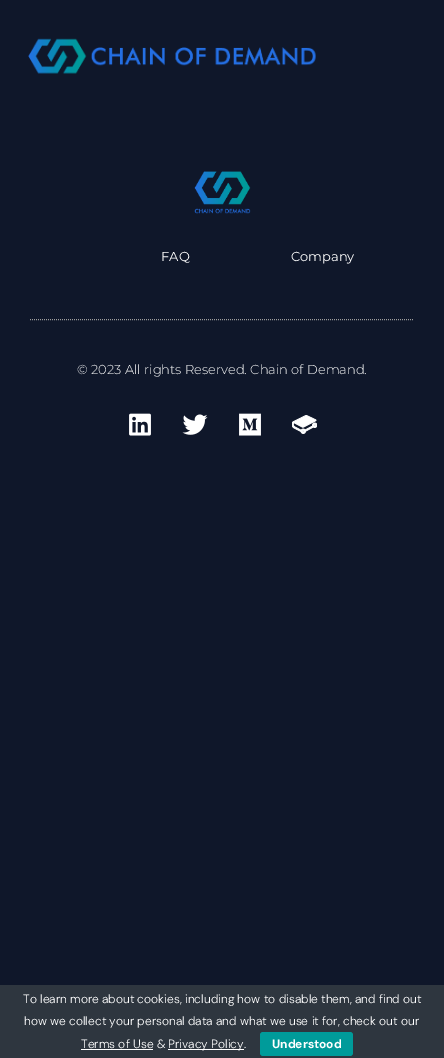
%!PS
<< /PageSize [444 1058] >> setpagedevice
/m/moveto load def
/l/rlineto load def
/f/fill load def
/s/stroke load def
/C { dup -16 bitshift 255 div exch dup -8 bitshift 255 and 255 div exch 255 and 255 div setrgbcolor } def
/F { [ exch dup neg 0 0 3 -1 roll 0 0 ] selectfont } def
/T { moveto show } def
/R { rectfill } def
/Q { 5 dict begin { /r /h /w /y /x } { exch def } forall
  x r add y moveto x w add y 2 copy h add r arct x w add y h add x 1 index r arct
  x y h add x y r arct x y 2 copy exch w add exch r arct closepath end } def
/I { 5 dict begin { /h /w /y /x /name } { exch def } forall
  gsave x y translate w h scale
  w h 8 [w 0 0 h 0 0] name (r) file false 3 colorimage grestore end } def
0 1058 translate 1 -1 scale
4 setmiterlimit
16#0F172A C
0 0 444 1058 R
(1.rgb) 28 38 288 36 I
16#9B9B9B C
[1 1] 0 setdash
30 319.5 m 384 0 l s
(2.rgb) 194 171 57 43 I
/Montserrat-Regular 13 F
16#FFFFFF C
(FAQ) 161 261 T
(Company) 291 261 T
/Montserrat-Light 13 F
(© 2023 All rights Reserved. Chain of Demand.) 77 374 T
(3.rgb) 129 413 22 23 I
(4.rgb) 182 414 26 21 I
(5.rgb) 239 413 22 23 I
(6.rgb) 292 415 25 19 I
16#2E363F C
0 985 444 73 R
/DMSans-Light 12 F
16#FFFFFF C
(To learn more about cookies, including how to disable them, and find out) 23 1003 T
(how we collect your personal data and what we use it for, check out our) 24 1025 T
(Terms of Use &) 81 1048 T
81 1049 72 1 R
168 1049 76 1 R
(Privacy Policy.) 168 1048 T
16#009B9A C
260 1032 93 24 3 Q f
/DMSans-Bold 12 F
16#FFFFFF C
(Understood) 272 1048 T
showpage
